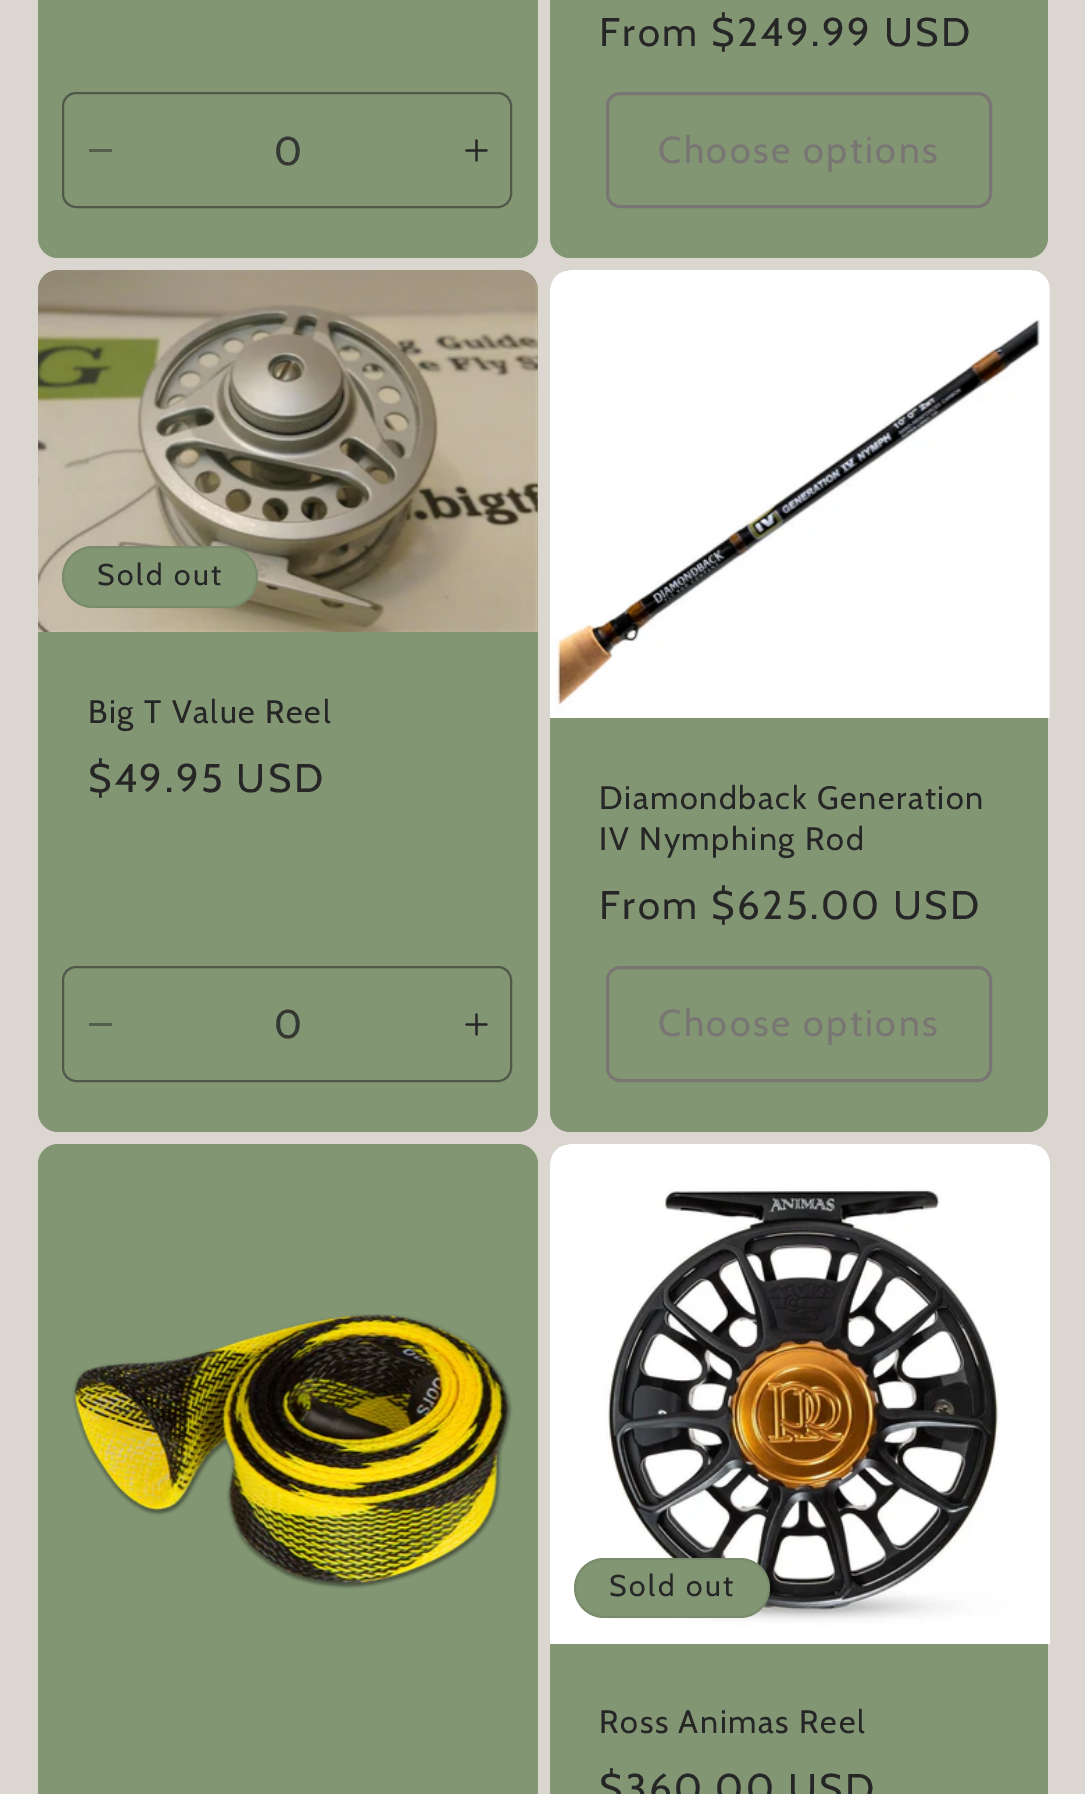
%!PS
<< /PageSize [1085 1794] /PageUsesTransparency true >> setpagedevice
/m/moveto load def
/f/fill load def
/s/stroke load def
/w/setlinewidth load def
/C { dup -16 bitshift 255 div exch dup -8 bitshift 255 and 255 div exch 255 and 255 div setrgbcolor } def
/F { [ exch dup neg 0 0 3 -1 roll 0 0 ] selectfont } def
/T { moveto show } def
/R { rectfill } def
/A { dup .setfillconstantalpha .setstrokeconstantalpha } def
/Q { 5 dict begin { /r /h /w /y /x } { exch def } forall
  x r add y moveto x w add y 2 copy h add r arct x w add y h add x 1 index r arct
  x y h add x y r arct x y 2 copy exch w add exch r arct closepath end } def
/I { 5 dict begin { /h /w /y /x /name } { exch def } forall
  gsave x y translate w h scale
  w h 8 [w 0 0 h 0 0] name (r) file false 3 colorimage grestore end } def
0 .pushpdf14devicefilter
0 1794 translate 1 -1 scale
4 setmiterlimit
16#DBD6CF C
0 0 1085 1794 R
16#829673 C
38 -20 500 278 20 Q f
16#545E4D C
89 149 23 3 R
(1.rgb) 465 139 23 23 I
16#4F5849 C
2 w
63 93 448 114 13 Q s
/Cabin-Regular 40 F
16#343732 C
(0) 274 165 T
16#829673 C
550 -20 498 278 20 Q f
16#262626 C
599 46 m 2.5 0 (From $249.99 USD) ashow
16#797572 C
3 w
607.5 93.5 383 113 12.5 Q s
/Cabin-Regular 37.5 F
658 163 m 2.5 0 (Choose options) ashow
16#829673 C
38 270 500 862 20 Q f
(2.rgb) 38 270 500 362 I
62 546 196 62 31 Q f
0.1 A
16#262626 C
2 w
63 547 194 60 30 Q s
/Cabin-Regular 30 F
1 A
97 585 m 2.5 0 (Sold out) ashow
/Cabin-Regular 32.4 F
88 723 m 1.6 0 (Big T Value Reel) ashow
/Cabin-Regular 40 F
88 792 m 2.5 0 ($49.95 USD) ashow
16#545E4D C
89 1023 23 3 R
(1.rgb) 465 1013 23 23 I
16#4F5849 C
63 967 448 114 13 Q s
16#343732 C
(0) 274 1038 T
16#829673 C
550 270 498 862 20 Q f
(3.rgb) 550 270 500 448 I
/Cabin-Regular 32.4 F
16#262626 C
599 809 m 1.6 0 (Diamondback Generation) ashow
599 850 m 1.6 0 (IV Nymphing Rod) ashow
/Cabin-Regular 40 F
599 919 m 2.5 0 (From $625.00 USD) ashow
16#797572 C
3 w
607.5 967.5 383 113 12.5 Q s
/Cabin-Regular 37.5 F
658 1036 m 2.5 0 (Choose options) ashow
16#829673 C
38 1144 500 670 20 Q f
(4.rgb) 72 1314 441 275 I
550 1144 498 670 20 Q f
(5.rgb) 550 1144 500 500 I
574 1558 196 60 30 Q f
0.1 A
16#262626 C
2 w
575 1559 194 58 29 Q s
/Cabin-Regular 30 F
1 A
609 1596 m 2.5 0 (Sold out) ashow
/Cabin-Regular 32.4 F
599 1733 m 1.6 0 (Ross Animas Reel) ashow
/Cabin-Regular 40 F
599 1802 m 2.5 0 ($360.00 USD) ashow
.poppdf14devicefilter showpage
